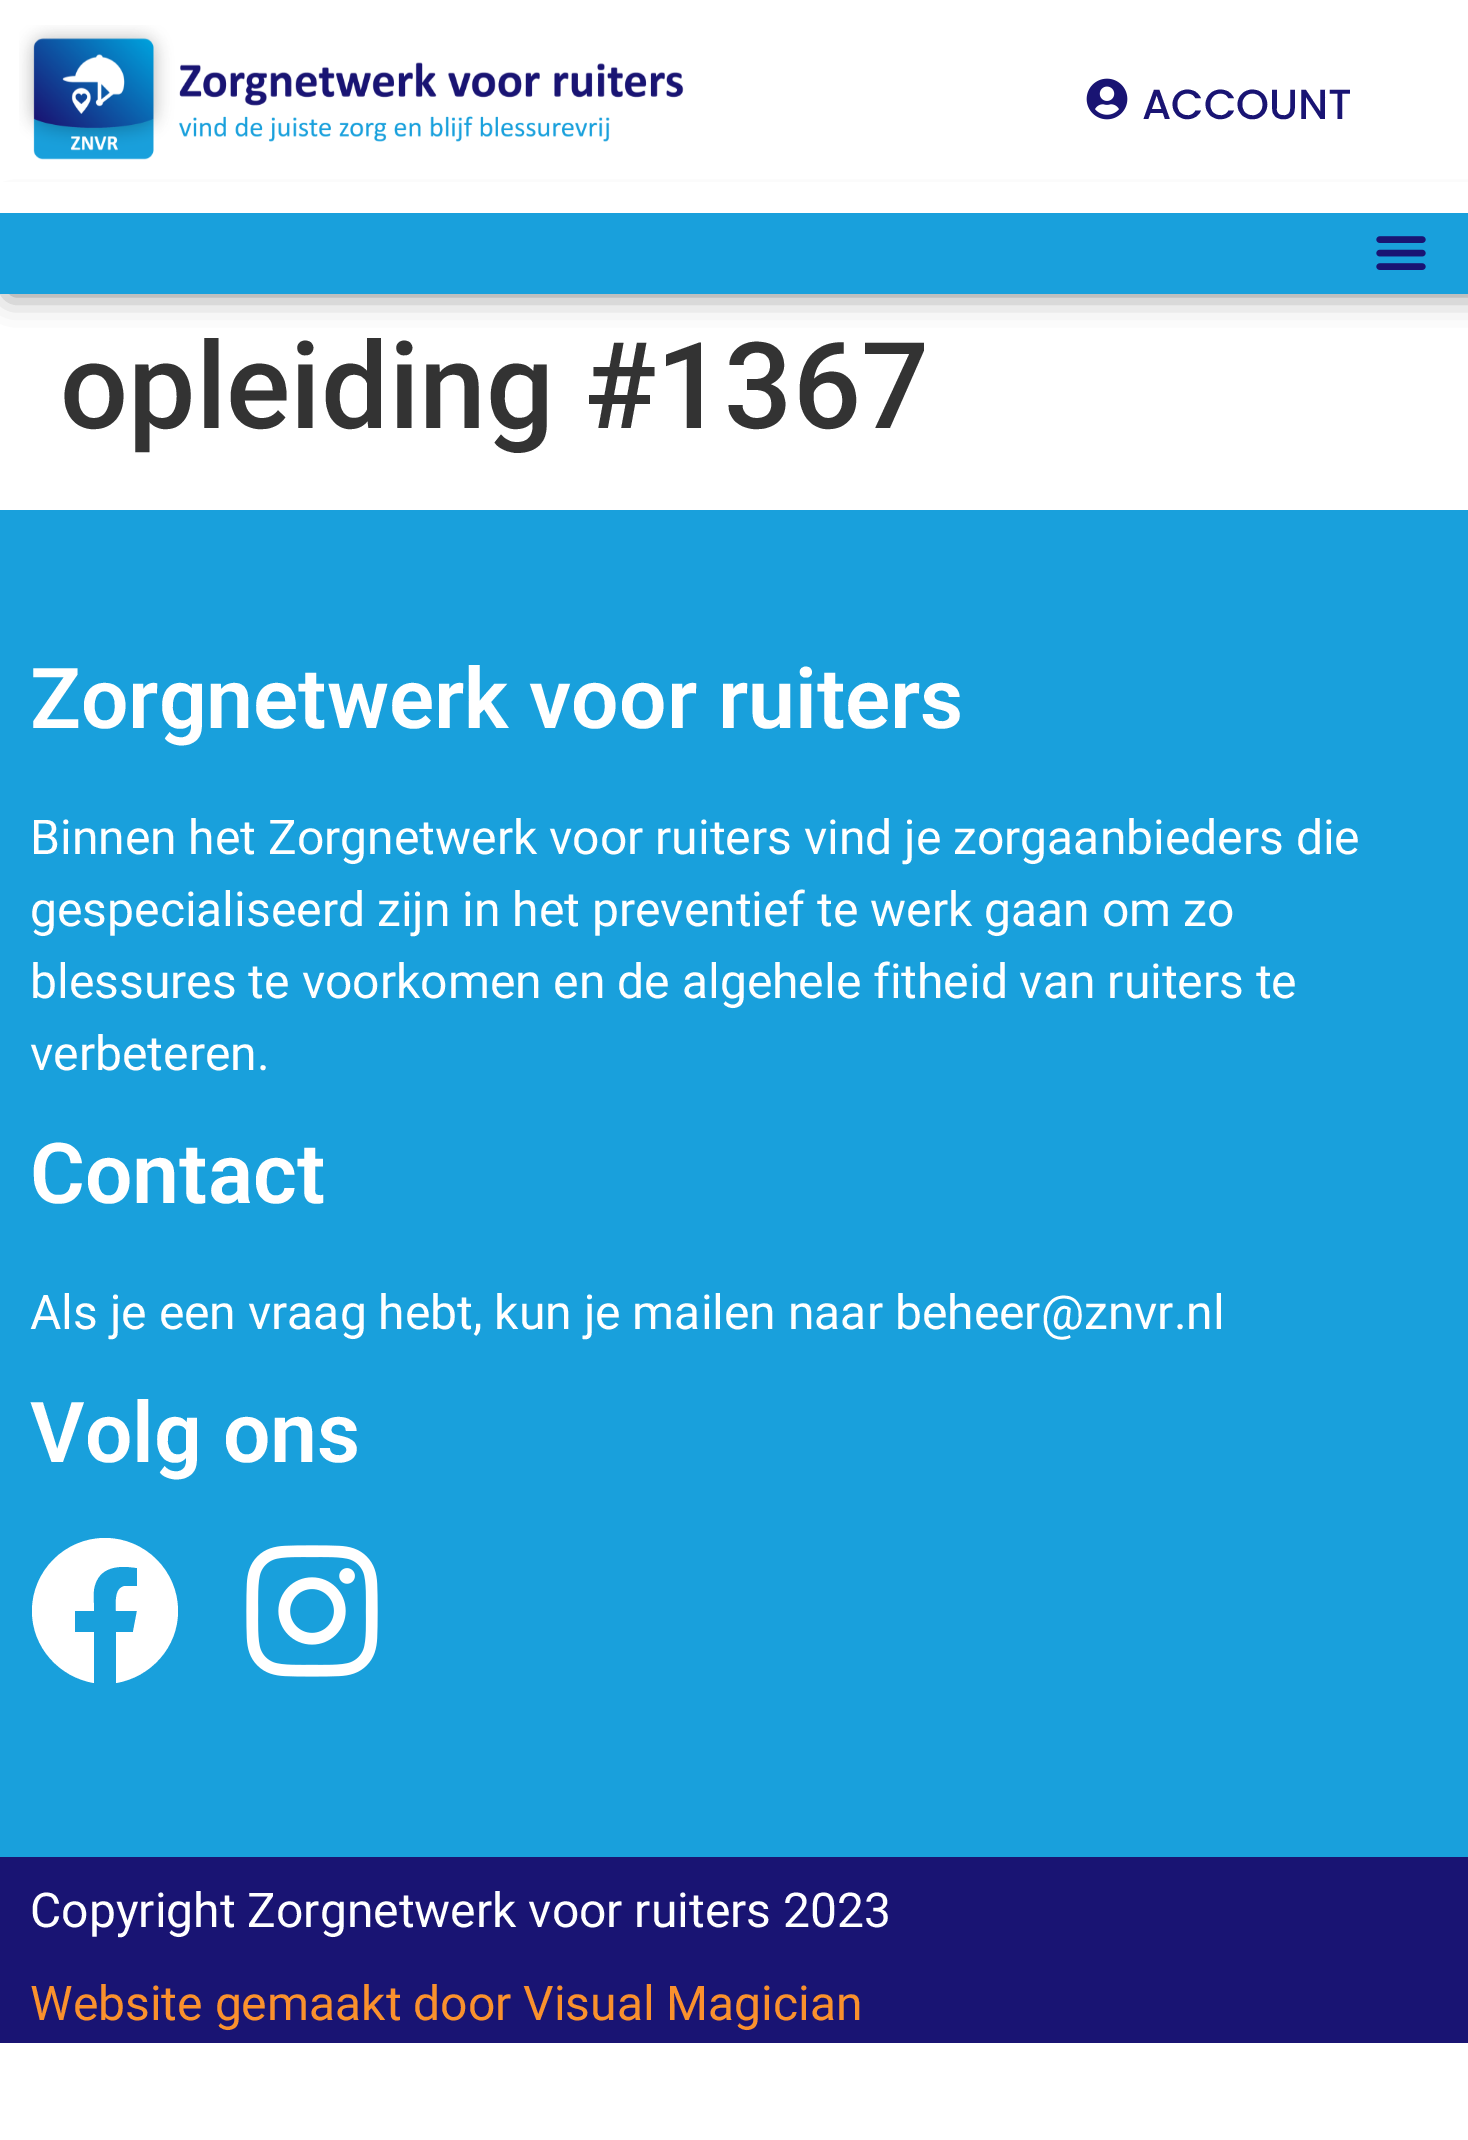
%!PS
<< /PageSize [1468 2140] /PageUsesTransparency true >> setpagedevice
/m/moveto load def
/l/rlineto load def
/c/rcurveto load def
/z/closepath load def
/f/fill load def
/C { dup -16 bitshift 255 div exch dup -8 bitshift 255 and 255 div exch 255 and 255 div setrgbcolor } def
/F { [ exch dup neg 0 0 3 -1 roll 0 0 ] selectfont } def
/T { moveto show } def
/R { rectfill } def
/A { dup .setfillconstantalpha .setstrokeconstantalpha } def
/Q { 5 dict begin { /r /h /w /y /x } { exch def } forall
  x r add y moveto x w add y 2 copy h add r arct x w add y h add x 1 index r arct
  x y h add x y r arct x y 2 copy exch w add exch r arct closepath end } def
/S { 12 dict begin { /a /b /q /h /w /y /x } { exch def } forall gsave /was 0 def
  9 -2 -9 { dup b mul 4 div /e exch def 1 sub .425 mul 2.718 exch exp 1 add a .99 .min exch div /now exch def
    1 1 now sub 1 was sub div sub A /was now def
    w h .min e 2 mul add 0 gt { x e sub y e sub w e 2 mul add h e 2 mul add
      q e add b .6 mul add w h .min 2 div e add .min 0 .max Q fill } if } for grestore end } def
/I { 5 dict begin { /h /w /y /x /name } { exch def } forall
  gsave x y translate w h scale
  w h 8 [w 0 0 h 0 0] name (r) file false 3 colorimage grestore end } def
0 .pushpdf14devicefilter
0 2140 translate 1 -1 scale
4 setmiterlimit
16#FFFFFF C
0 0 1468 2140 R
16#000000 C
9 213 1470 81 0 15 .5 S
16#FFFFFF C
0 182 1468 31 R
(1.rgb) 19 25 665 135 I
(2.rgb) 1086 78 42 42 I
/Poppins-Medium 42 F
16#191473 C
(ACCOUNT) 1142 119 T
16#19A0DC C
0 213 1468 81 R
(3.rgb) 1376 236 50 34 I
/Roboto-Medium 120 F
16#333333 C
(opleiding #1367) 60 428 T
16#19A0DC C
0 510 1468 1347 R
/Roboto-SemiBold 84 F
16#FFFFFF C
(Zorgnetwerk voor ruiters) 30 728 T
/Roboto-Regular 48 F
(Binnen het Zorgnetwerk voor ruiters vind je zorgaanbieders die) 30 854 T
(gespecialiseerd zijn in het preventief te werk gaan om zo) 30 926 T
(blessures te voorkomen en de algehele fitheid van ruiters te) 30 998 T
(verbeteren.) 30 1070 T
/Roboto-SemiBold 84 F
(Contact) 30 1203 T
/Roboto-Regular 48 F
(Als je een vraag hebt, kun je mailen naar beheer@znvr.nl) 30 1329 T
/Roboto-SemiBold 84 F
(Volg ons) 30 1462 T
178 1611 m 0 -40 -33 -73 -73 -73 c -40 0 -73 33 -73 73 c 0 36 27 66 62 72 c 0 -51 l -19 0 l 0 -21 l 19 0 l 0 -7 -1 -15 0 -22 c 4 -23 25 -24 43 -21 c 0 18 l -12 0 l -11 2 -9 17 -9 25 c 21 0 l -4 21 l -17 0 l 0 51 l 35 -6 62 -36 62 -72 c z f
(4.rgb) 246 1545 132 132 I
16#191473 C
0 1857 1468 186 R
/Roboto-Regular 48 F
16#FFFFFF C
(Copyright Zorgnetwerk voor ruiters 2023) 30 1927 T
16#FA912D C
(Website gemaakt door Visual Magician) 30 2020 T
.poppdf14devicefilter showpage
